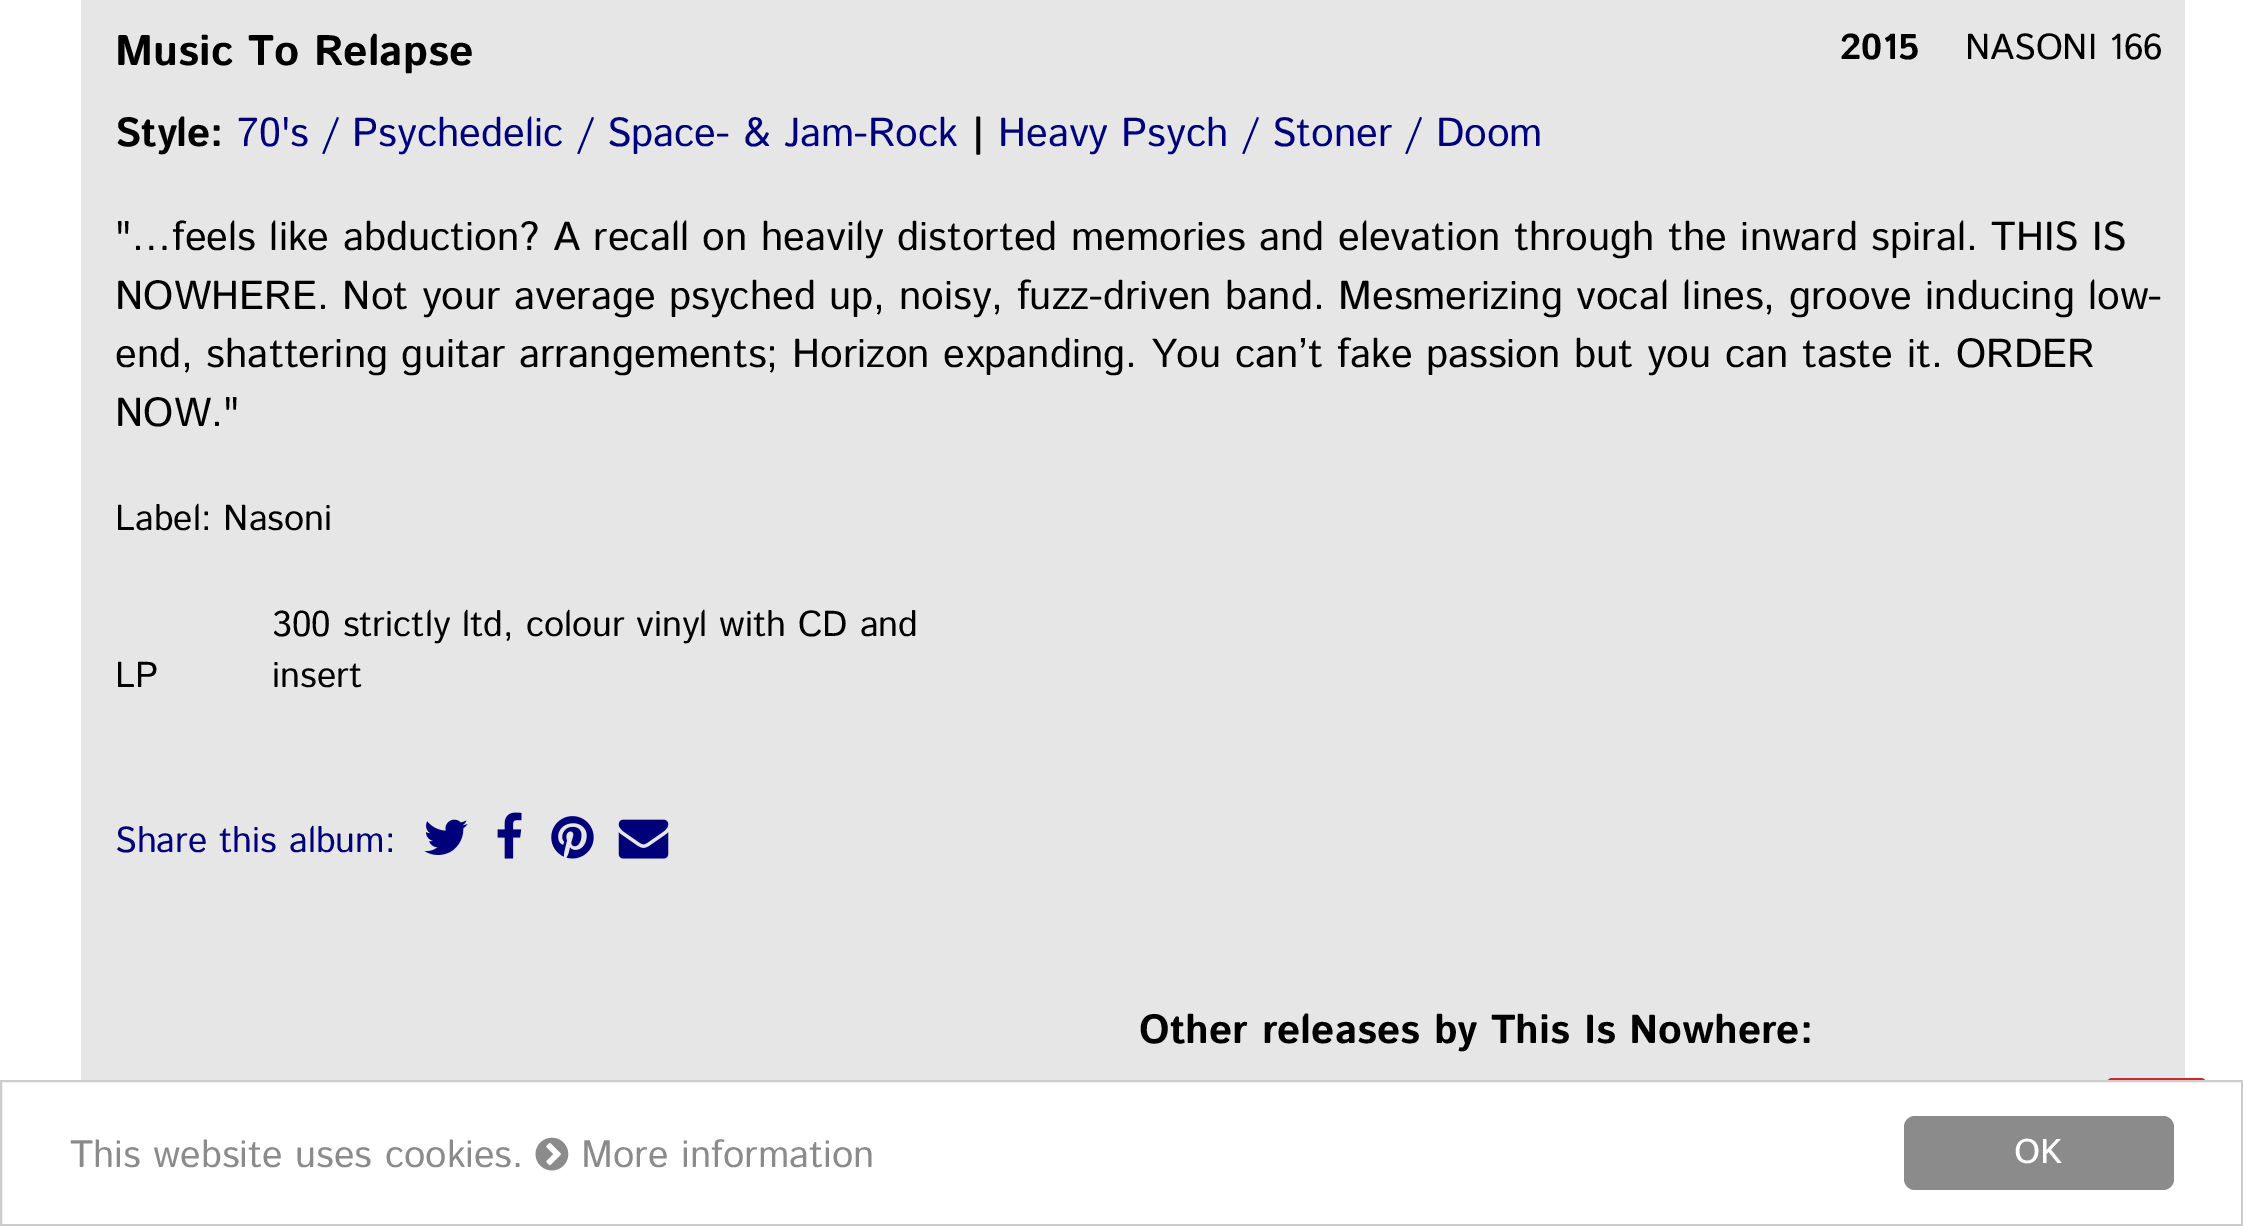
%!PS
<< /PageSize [2243 1226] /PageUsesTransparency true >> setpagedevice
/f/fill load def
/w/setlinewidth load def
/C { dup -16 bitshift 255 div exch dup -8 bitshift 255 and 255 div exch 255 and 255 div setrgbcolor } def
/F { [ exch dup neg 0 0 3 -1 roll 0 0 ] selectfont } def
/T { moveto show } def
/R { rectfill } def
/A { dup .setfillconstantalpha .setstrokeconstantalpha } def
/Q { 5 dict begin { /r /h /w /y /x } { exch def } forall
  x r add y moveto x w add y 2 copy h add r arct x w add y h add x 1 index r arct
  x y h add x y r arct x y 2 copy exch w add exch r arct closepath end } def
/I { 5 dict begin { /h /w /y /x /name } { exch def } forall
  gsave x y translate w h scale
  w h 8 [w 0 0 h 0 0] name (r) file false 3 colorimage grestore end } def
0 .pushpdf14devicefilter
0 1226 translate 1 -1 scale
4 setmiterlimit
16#FFFFFF C
0 0 2243 1226 R
16#E6E6E6 C
81 0 2104 1080 R
/IstokWeb-Bold 42.75 F
16#000000 C
(Music To Relapse) 115 65 T
/IstokWeb-Bold 36 F
(2015) 1840 59 T
/IstokWeb-Regular 36 F
(NASONI 166) 1965 59 T
/IstokWeb-Bold 40.5 F
(Style:) 115 146 T
/IstokWeb-Regular 40.5 F
16#00007B C
(70's / Psychedelic / Space- & Jam-Rock) 237 146 T
/IstokWeb-Bold 40.5 F
16#000000 C
(|) 972 146 T
/IstokWeb-Regular 40.5 F
16#00007B C
(Heavy Psych / Stoner / Doom) 998 146 T
16#000000 C
("…feels like abduction? A recall on heavily distorted memories and elevation through the inward spiral. THIS IS) 115 250 T
(NOWHERE. Not your average psyched up, noisy, fuzz-driven band. Mesmerizing vocal lines, groove inducing low-) 115 309 T
(end, shattering guitar arrangements; Horizon expanding. You can’t fake passion but you can taste it. ORDER) 115 367 T
(NOW.") 115 426 T
/IstokWeb-Regular 36 F
(Label: Nasoni) 115 530 T
(LP) 115 687 T
(300 strictly ltd, colour vinyl with CD and) 272 636 T
(insert) 272 687 T
16#00007B C
(Share this album:) 115 852 T
(1.rgb) 424 819 44 36 I
(2.rgb) 497 812 25 47 I
(3.rgb) 551 816 43 43 I
(4.rgb) 618 819 51 40 I
/IstokWeb-Bold 40.5 F
16#000000 C
(Other releases by This Is Nowhere:) 1139 1043 T
0.95 A
16#CC2929 C
2106 1078 101 112 7 Q f
2106 1078 101 112 7 Q f
1 A
16#FFFFFF C
2106 1082 101 108 R
16#CCCCCC C
2 w
1 1081 2241 144 rectstroke
/IstokWeb-Regular 38.25 F
16#8B8B8B C
(This website uses cookies.) 70 1167 T
(5.rgb) 535 1137 34 34 I
(More information) 581 1167 T
1904 1116 270 74 11 Q f
/EkMukta-Regular 38.25 F
16#FFFFFF C
(OK) 2014 1163 T
.poppdf14devicefilter showpage
